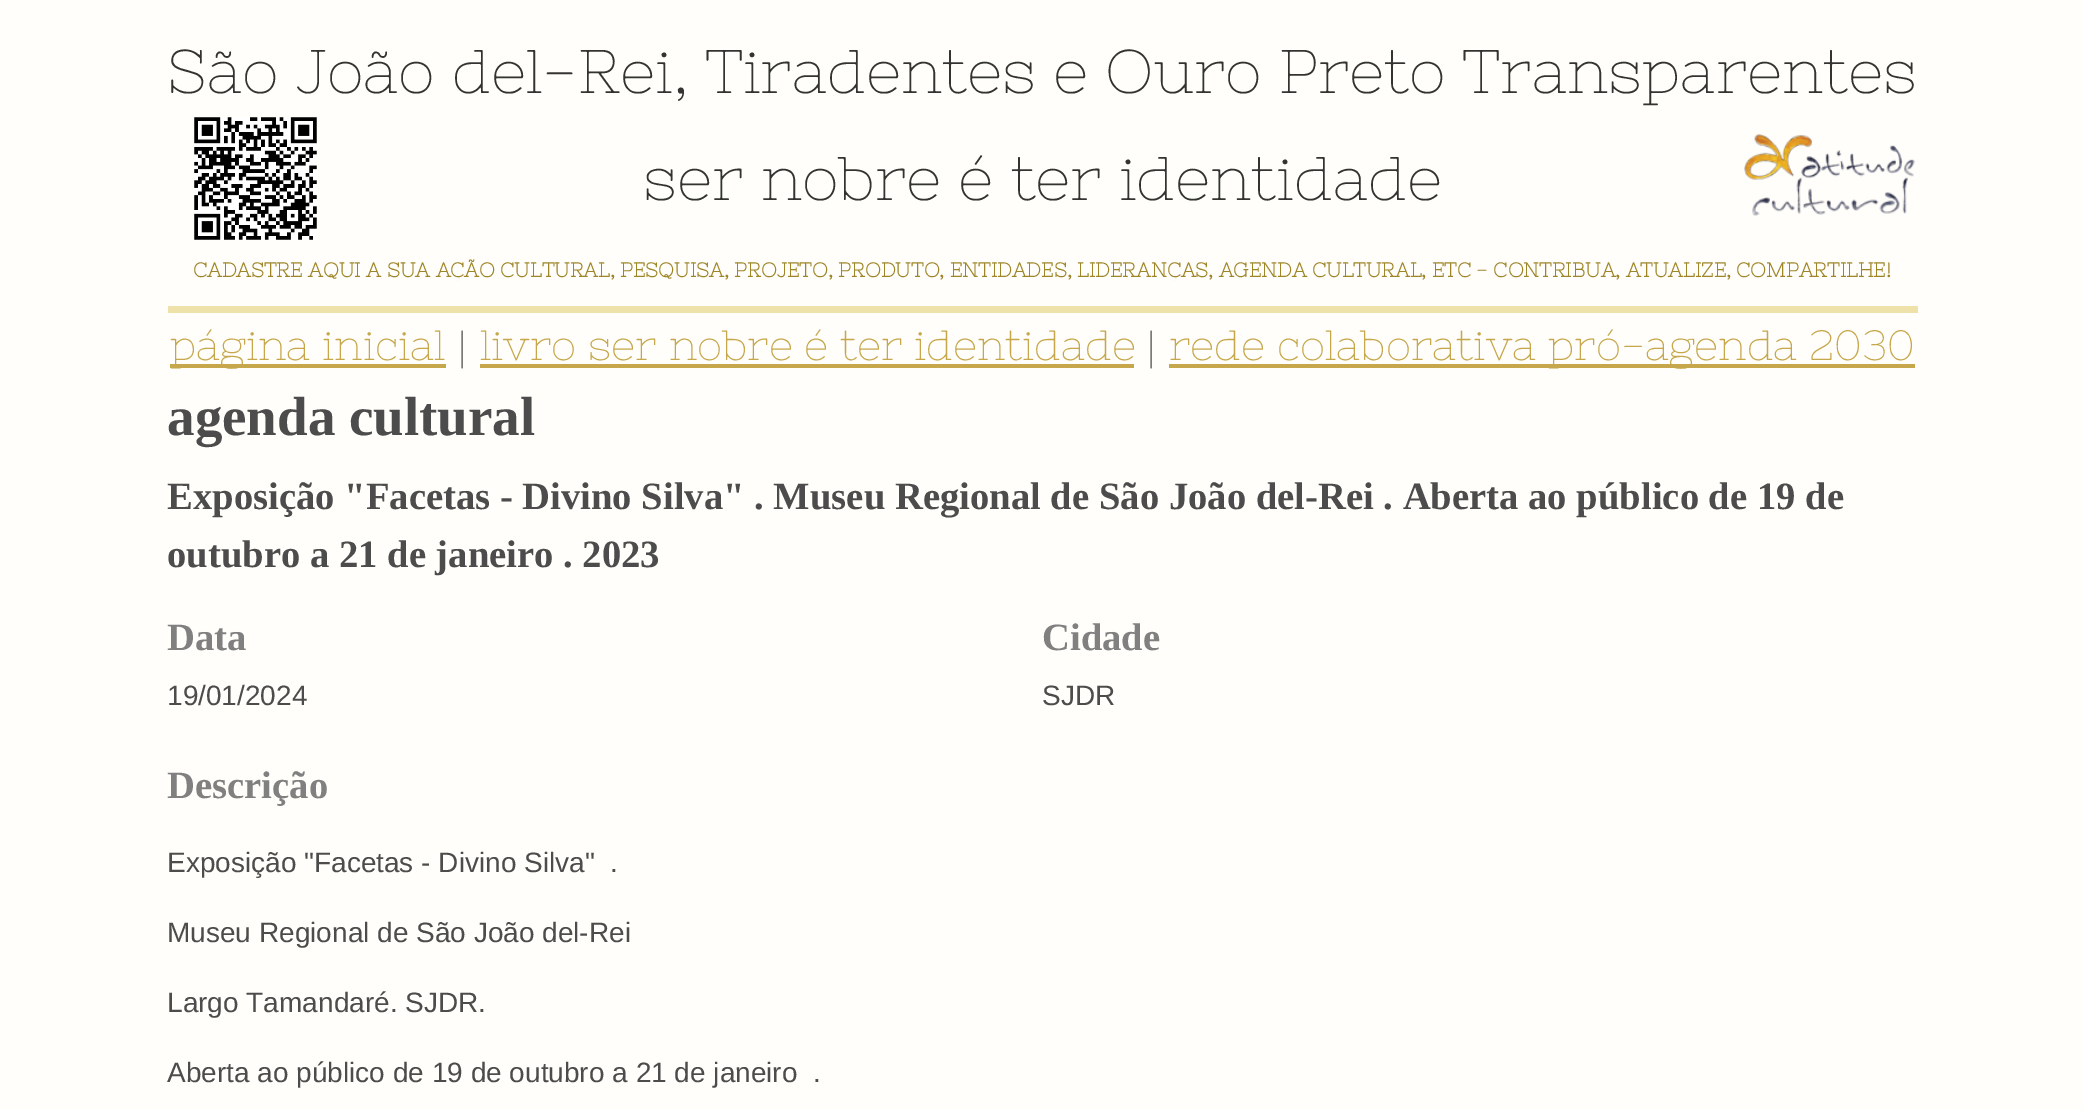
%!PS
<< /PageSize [2083 1110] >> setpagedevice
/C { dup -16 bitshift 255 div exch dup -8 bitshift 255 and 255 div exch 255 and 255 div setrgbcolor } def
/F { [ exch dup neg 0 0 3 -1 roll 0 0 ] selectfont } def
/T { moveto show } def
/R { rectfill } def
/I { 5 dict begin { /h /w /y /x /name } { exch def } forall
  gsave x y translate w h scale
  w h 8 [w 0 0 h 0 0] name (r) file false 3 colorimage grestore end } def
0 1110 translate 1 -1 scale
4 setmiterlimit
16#FFFEFA C
0 0 2083 1110 R
16#EEE1A9 C
168 306 1750 7 R
/NixieOne-Regular 61.6 F
16#333332 C
(São João del-Rei, Tiradentes e Ouro Preto Transparentes) 167 93 T
(1.rgb) 194 117 123 123 I
(ser nobre é ter identidade) 643 200 T
(2.rgb) 1744 134 171 82 I
/NixieOne-Bold 20.15 F
16#9E8528 C
(CADASTRE AQUI A SUA AÇÃO CULTURAL, PESQUISA, PROJETO, PRODUTO, ENTIDADES, LIDERANÇAS, AGENDA CULTURAL, ETC - CONTRIBUA, ATUALIZE, COMPARTILHE!) 193 277 T
16#C6A74B C
170 364 276 4 R
/NixieOne-Regular 42.25 F
(página inicial) 170 360 T
16#4C4C4C C
(|) 457 360 T
16#C6A74B C
(livro ser nobre é ter identidade) 480 360 T
480 364 654 4 R
16#4C4C4C C
(|) 1146 360 T
16#C6A74B C
1169 364 746 4 R
(rede colaborativa pró-agenda 2030) 1169 360 T
/LiberationSerif-Bold 55 F
16#4C4C4C C
(agenda cultural) 167 435 T
/LiberationSerif-Bold 38.65 F
(Exposição "Facetas - Divino Silva" . Museu Regional de São João del-Rei . Aberta ao público de 19 de) 167 509 T
(outubro a 21 de janeiro . 2023) 167 567 T
16#808080 C
(Data) 167 650 T
/LiberationSans-Regular 28 F
16#4C4C4C C
(19/01/2024) 167 705 T
/LiberationSerif-Bold 38.65 F
16#808080 C
(Cidade) 1042 650 T
/LiberationSans-Regular 28 F
16#4C4C4C C
(SJDR) 1042 705 T
/LiberationSerif-Bold 38.65 F
16#808080 C
(Descrição) 167 798 T
/LiberationSans-Regular 28 F
16#4C4C4C C
(Exposição "Facetas - Divino Silva"  .) 167 872 T
(Museu Regional de São João del-Rei) 167 942 T
(Largo Tamandaré. SJDR.) 167 1012 T
(Aberta ao público de 19 de outubro a 21 de janeiro  .) 167 1082 T
showpage
